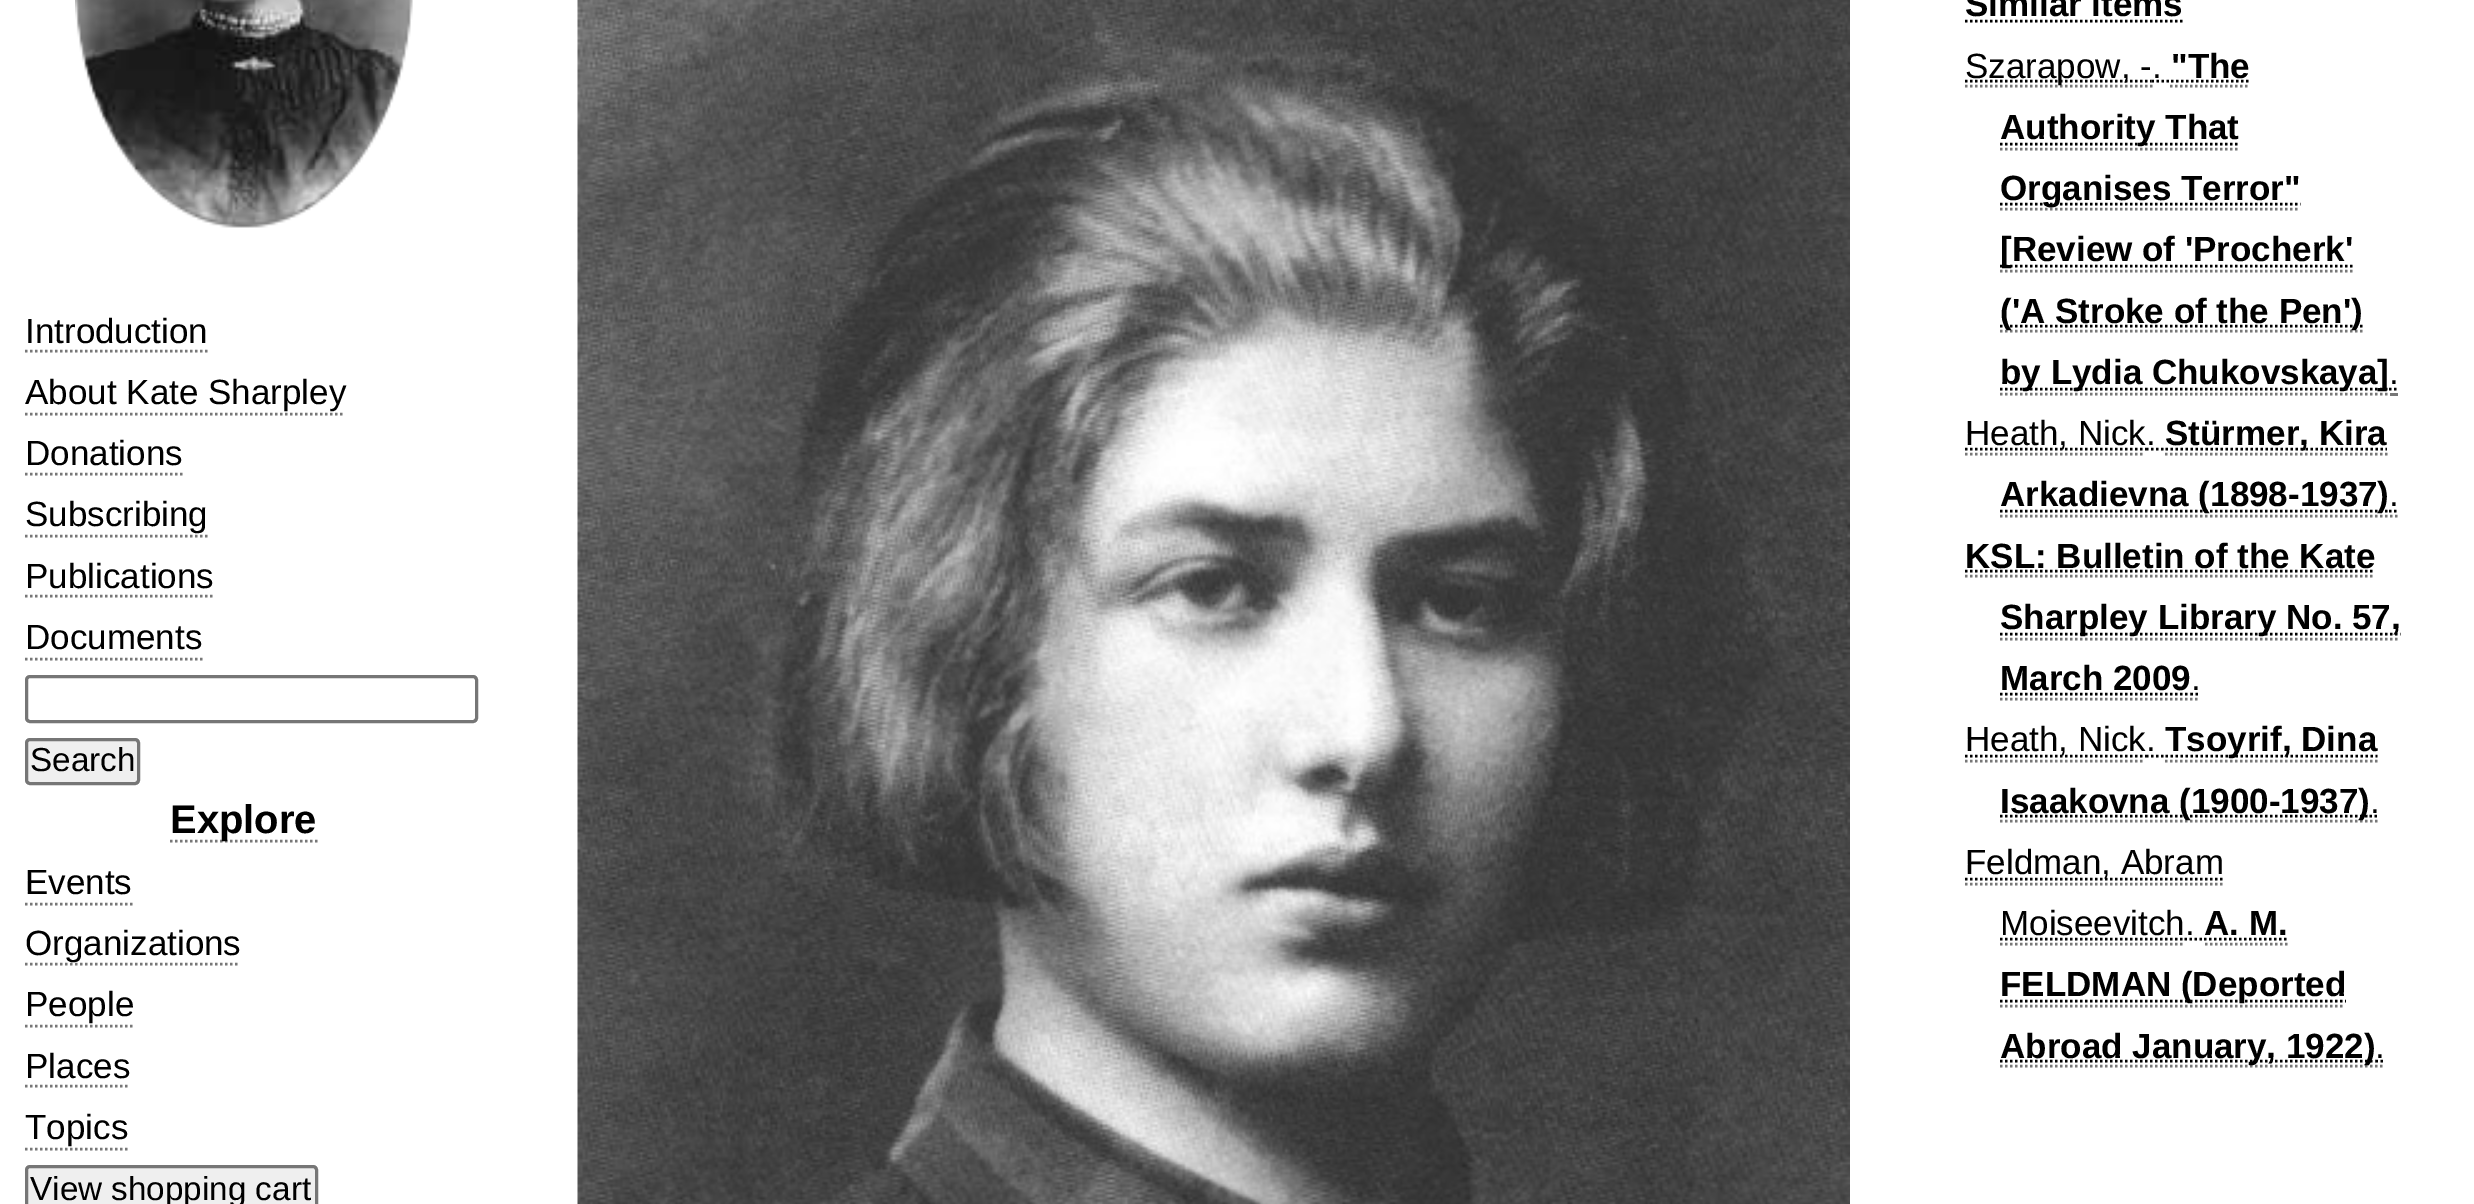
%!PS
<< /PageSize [2474 1204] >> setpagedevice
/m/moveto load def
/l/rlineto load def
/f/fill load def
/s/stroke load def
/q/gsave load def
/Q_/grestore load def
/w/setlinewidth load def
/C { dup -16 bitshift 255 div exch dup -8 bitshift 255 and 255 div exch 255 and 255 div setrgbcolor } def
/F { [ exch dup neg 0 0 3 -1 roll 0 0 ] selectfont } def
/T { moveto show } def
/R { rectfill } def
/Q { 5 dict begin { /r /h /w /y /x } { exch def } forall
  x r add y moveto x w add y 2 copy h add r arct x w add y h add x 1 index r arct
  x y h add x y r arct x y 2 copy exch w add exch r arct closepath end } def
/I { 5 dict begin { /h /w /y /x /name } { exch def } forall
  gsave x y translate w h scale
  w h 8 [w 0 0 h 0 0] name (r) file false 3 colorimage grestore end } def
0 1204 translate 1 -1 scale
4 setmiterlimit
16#FFFFFF C
0 0 2474 1204 R
(1.rgb) 75 0 338 228 I
/LiberationSans-Regular 35 F
16#000000 C
(Introduction) 25 343 T
16#777777 C
2.5 w
[2.5 2.5] 0 setdash
25 351 m 182.5 0 l s
16#000000 C
(About Kate Sharpley) 25 404 T
16#777777 C
25 414 m 320 0 l s
16#000000 C
(Donations) 25 465 T
16#777777 C
25 474 m 157.5 0 l s
16#000000 C
(Subscribing) 25 526 T
16#777777 C
25 536 m 182.5 0 l s
16#000000 C
(Publications) 25 588 T
16#777777 C
25 596 m 190 0 l s
16#000000 C
(Documents) 25 649 T
16#777777 C
25 659 m 177.5 0 l s
16#767676 C
3 w
[] 0 setdash
26.5 676.5 450 45 3.5 Q s
16#EFEFEF C
26.5 739.5 112 44 3.5 Q q f Q_
16#767676 C
s
/LiberationSans-Regular 33.25 F
16#000000 C
(Search) 30 771 T
16#777777 C
2.5 w
[2.5 2.5] 0 setdash
170 841 m 147.5 0 l s
/LiberationSans-Bold 40 F
16#000000 C
(Explore) 170 833 T
/LiberationSans-Regular 35 F
(Events) 25 894 T
16#777777 C
25 904 m 107.5 0 l s
25 964 m 215 0 l s
16#000000 C
(Organizations) 25 955 T
(People) 25 1016 T
16#777777 C
25 1026 m 110 0 l s
16#000000 C
(Places) 25 1078 T
16#777777 C
25 1086 m 105 0 l s
16#000000 C
(Topics) 25 1139 T
16#777777 C
25 1149 m 102.5 0 l s
16#EFEFEF C
26.5 1166.5 290 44 3.5 Q q f Q_
16#767676 C
3 w
[] 0 setdash
s
/LiberationSans-Regular 33.25 F
16#000000 C
(View shopping cart) 30 1200 T
(2.rgb) 577 0 1273 1204 I
/LiberationSans-Bold 35 F
(Similar items) 1965 16 T
2.5 w
[2.5 2.5] 0 setdash
1965 21 m 218 0 l s
16#777777 C
1965 86 m 187.5 0 l s
16#000000 C
1965 81 m 186.5 0 l s
/LiberationSans-Regular 35 F
(Szarapow, -.) 1965 78 T
2151.5 81 m 19.5 0 l s
/LiberationSans-Bold 35 F
("The) 2171 78 T
16#777777 C
2170 86 m 80 0 l s
16#000000 C
2171 81 m 79 0 l s
2000 144 m 239 0 l s
(Authority That) 2000 139 T
16#777777 C
2000 149 m 240 0 l s
2000 209 m 300 0 l s
16#000000 C
2000 204 m 300.5 0 l s
(Organises Terror") 2000 200 T
2000 266 m 353 0 l s
([Review of 'Procherk') 2000 261 T
16#777777 C
2000 271 m 352.5 0 l s
2000 331 m 362.5 0 l s
16#000000 C
2000 326 m 362.5 0 l s
(\('A Stroke of the Pen'\)) 2000 323 T
2000 389 m 389 0 l s
(by Lydia Chukovskaya]) 2000 384 T
/LiberationSans-Regular 35 F
(.) 2389 384 T
16#777777 C
2000 394 m 390 0 l s
2390 393 8 3 R
16#000000 C
[] 0 setdash
2389 389 m 2.5 0 l 2394 389 m 2.5 0 l s
[2.5 2.5] 0 setdash
1965 449 m 181 0 l s
(Heath, Nick.) 1965 445 T
16#777777 C
1965 454 m 180 0 l s
16#000000 C
2146 449 m 19.5 0 l s
2165.5 449 m 221.5 0 l s
/LiberationSans-Bold 35 F
(Stürmer, Kira) 2165 445 T
16#777777 C
2165 454 m 222.5 0 l s
16#000000 C
2000 511 m 389 0 l s
(Arkadievna \(1898-1937\)) 2000 506 T
/LiberationSans-Regular 35 F
(.) 2389 506 T
16#777777 C
2000 516 m 390 0 l s
[] 0 setdash
2390 516 m 2.5 0 l 2395 516 m 2.5 0 l s
16#000000 C
2389 511 m 2.5 0 l 2394 511 m 2.5 0 l s
/LiberationSans-Bold 35 F
(KSL: Bulletin of the Kate) 1965 568 T
16#777777 C
[2.5 2.5] 0 setdash
1965 576 m 410 0 l s
16#000000 C
1965 571 m 410 0 l s
2000 634 m 400.5 0 l s
(Sharpley Library No. 57,) 2000 629 T
16#777777 C
2000 639 m 400 0 l s
16#000000 C
(March 2009) 2000 690 T
/LiberationSans-Regular 35 F
(.) 2191 690 T
16#777777 C
2000 699 m 190 0 l s
[] 0 setdash
2190 699 m 2.5 0 l 2195 699 m 2.5 0 l s
16#000000 C
[2.5 2.5] 0 setdash
2000 694 m 190.5 0 l s
[] 0 setdash
2190.5 694 m 2.5 0 l 2195.5 694 m 2.5 0 l s
[2.5 2.5] 0 setdash
1965 756 m 181 0 l s
(Heath, Nick.) 1965 751 T
16#777777 C
1965 761 m 180 0 l s
16#000000 C
2146 756 m 19.5 0 l s
2165.5 756 m 212 0 l s
/LiberationSans-Bold 35 F
(Tsoyrif, Dina) 2165 751 T
16#777777 C
2165 761 m 212.5 0 l s
2000 821 m 370 0 l s
16#000000 C
2000 816 m 369.5 0 l s
(Isaakovna \(1900-1937\)) 2000 813 T
/LiberationSans-Regular 35 F
(.) 2370 813 T
16#777777 C
[] 0 setdash
2370 821 m 2.5 0 l 2375 821 m 2.5 0 l s
16#000000 C
2369.5 816 m 2.5 0 l 2374.5 816 m 2.5 0 l s
[2.5 2.5] 0 setdash
1965 879 m 258.5 0 l s
(Feldman, Abram) 1965 874 T
16#777777 C
1965 884 m 257.5 0 l s
16#000000 C
(Moiseevitch.) 2000 935 T
16#777777 C
2000 944 m 185 0 l s
16#000000 C
2000 939 m 184.5 0 l s
/LiberationSans-Bold 35 F
(A. M.) 2204 935 T
16#777777 C
2205 944 m 82.5 0 l s
16#000000 C
2204 939 m 84 0 l s
2184.5 939 m 19.5 0 l s
2000 1001 m 346 0 l s
(FELDMAN \(Deported) 2000 996 T
16#777777 C
2000 1006 m 345 0 l s
2000 1066 m 375 0 l s
16#000000 C
2000 1061 m 375.5 0 l s
(Abroad January, 1922\)) 2000 1058 T
/LiberationSans-Regular 35 F
(.) 2375 1058 T
16#777777 C
[] 0 setdash
2375 1066 m 2.5 0 l 2380 1066 m 2.5 0 l s
16#000000 C
2375.5 1061 m 2.5 0 l 2380.5 1061 m 2.5 0 l s
showpage
